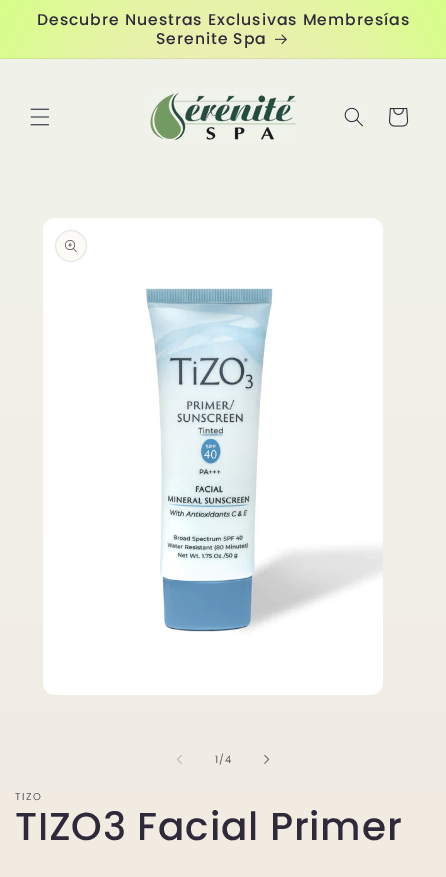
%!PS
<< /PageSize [446 877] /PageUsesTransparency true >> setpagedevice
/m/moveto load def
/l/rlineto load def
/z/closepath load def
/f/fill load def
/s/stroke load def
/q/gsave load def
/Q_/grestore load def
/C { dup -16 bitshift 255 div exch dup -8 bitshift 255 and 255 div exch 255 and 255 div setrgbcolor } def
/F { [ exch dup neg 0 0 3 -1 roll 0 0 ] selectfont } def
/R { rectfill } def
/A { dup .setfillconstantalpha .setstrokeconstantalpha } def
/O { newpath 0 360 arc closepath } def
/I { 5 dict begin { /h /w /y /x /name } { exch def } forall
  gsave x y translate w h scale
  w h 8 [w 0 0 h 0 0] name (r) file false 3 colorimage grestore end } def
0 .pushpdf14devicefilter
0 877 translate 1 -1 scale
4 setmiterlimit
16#FFFFFF C
0 0 446 877 R
q 0 59 m 446 0 l 0 133 l -446 0 l z clip newpath
<< /ShadingType 2 /ColorSpace /DeviceRGB /Coords [223 0 223 877] /Extend [true true] /Function << /FunctionType 2 /Domain [0 1] /C0 [.941 .957 .925] /C1 [.945 .922 .886] /N 1 >> >> shfill Q_
q 0 0 m 446 0 l 0 58 l -446 0 l z clip newpath 223 439 translate 315 620 scale
<< /ShadingType 3 /ColorSpace /DeviceRGB /Coords [0 0 0 0 0 1] /Extend [true true] /Function << /FunctionType 3 /Domain [0 1] /Functions [<< /FunctionType 2 /Domain [0 1] /C0 [1 .898 .898] /C1 [1 .878 .855] /N 1 >> << /FunctionType 2 /Domain [0 1] /C0 [1 .878 .855] /C1 [.843 1 .537] /N 1 >>] /Bounds [.25] /Encode [0 1 0 1] >> >> shfill Q_
q 0 58 m 446 0 l 0 1 l -446 0 l z clip newpath 223 439 translate 315 620 scale
<< /ShadingType 3 /ColorSpace /DeviceRGB /Coords [0 0 0 0 0 1] /Extend [true true] /Function << /FunctionType 3 /Domain [0 1] /Functions [<< /FunctionType 2 /Domain [0 1] /C0 [.933 .839 .843] /C1 [.933 .82 .804] /N 1 >> << /FunctionType 2 /Domain [0 1] /C0 [.933 .82 .804] /C1 [.788 .933 .514] /N 1 >>] /Bounds [.25] /Encode [0 1 0 1] >> >> shfill Q_
/Poppins-Medium 15.6 F
16#2E2A39 C
37 25 m 1 0 (Descubre Nuestras Exclusivas Membresías) ashow
156 44 m 1 0 (Serenite Spa) ashow
(1.rgb) 275 34 12 10 I
(2.rgb) 30 108 20 18 I
(3.rgb) 150 92 146 49 I
(4.rgb) 344 107 19 20 I
(5.rgb) 389 108 20 19 I
q 0 192 m 446 0 l 0 685 l -446 0 l z clip newpath
<< /ShadingType 2 /ColorSpace /DeviceRGB /Coords [223 0 223 877] /Extend [true true] /Function << /FunctionType 2 /Domain [0 1] /C0 [.941 .957 .925] /C1 [.945 .922 .886] /N 1 >> >> shfill Q_
(6.rgb) 43 218 340 477 I
16#FDFBF7 C
71 246 16 O f
0.1 A
16#2E2A39 C
71 246 15.5 O s
1 A
(7.rgb) 65 240 12 12 I
(8.rgb) 177 755 5 9 I
/Poppins-Regular 10 F
16#5F5B64 C
215 763 m 1 0 (1/4) ashow
(9.rgb) 264 754 6 10 I
15 800 m 1.5 0 (TIZO) ashow
/Poppins-Medium 39 F
16#2E2A39 C
15 840 m .75 0 (TIZO3 Facial Primer) ashow
.poppdf14devicefilter showpage
